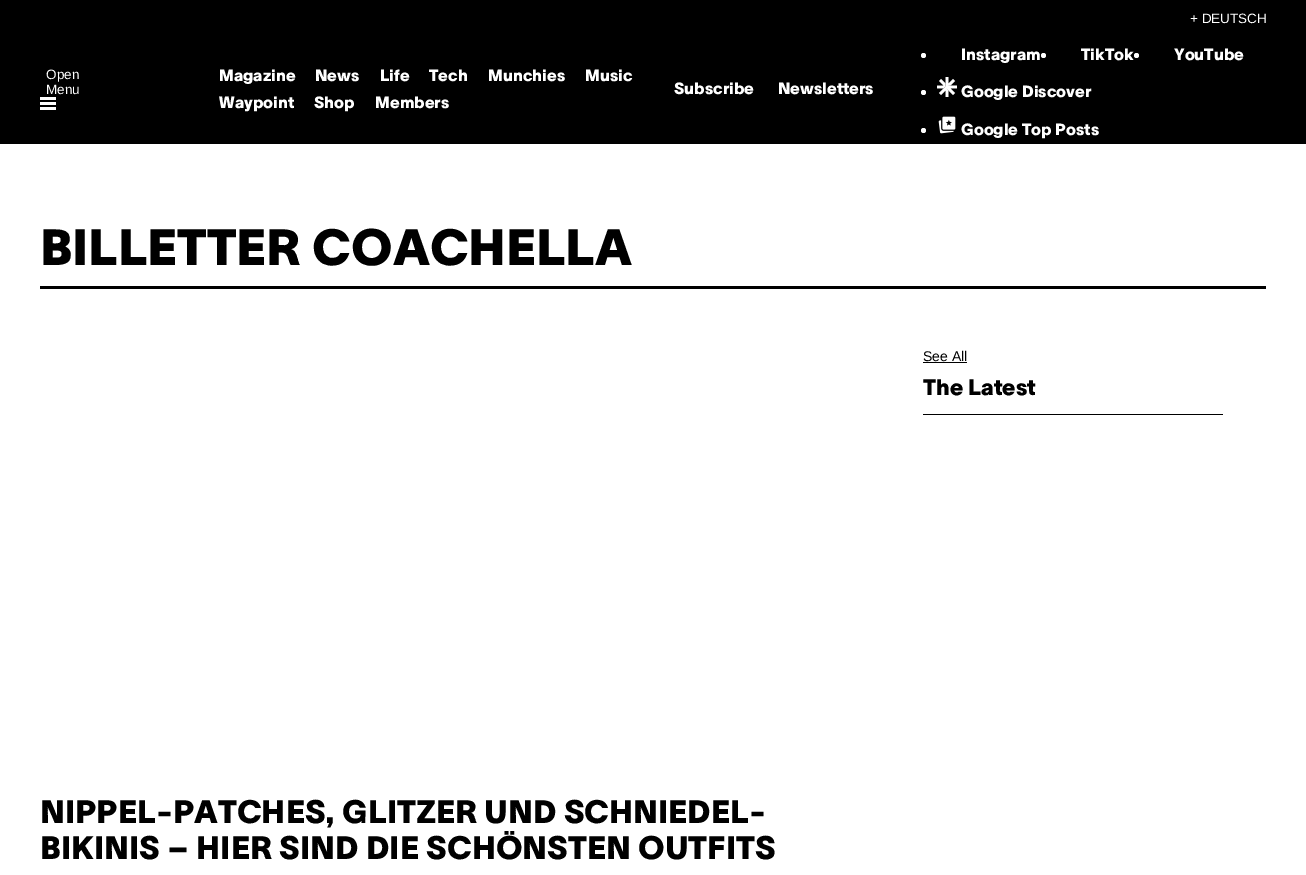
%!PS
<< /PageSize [1306 875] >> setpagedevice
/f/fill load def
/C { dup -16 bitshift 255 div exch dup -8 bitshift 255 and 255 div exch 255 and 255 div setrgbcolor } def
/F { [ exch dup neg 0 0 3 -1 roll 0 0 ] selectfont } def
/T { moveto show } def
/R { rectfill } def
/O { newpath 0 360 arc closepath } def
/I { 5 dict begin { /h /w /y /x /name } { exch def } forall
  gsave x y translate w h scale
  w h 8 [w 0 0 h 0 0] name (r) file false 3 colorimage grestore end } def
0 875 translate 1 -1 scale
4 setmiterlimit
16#FFFFFF C
0 0 1306 875 R
16#000000 C
0 0 1306 144 R
/LiberationSans-Regular 13.5 F
16#FFFFFF C
(+ DEUTSCH) 1190 23 T
(Open) 46 79 T
(Menu) 46 94 T
(1.rgb) 40 97 16 13 I
/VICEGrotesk-Black 16 F
(Magazine) 219 81 T
(News) 315 81 T
(Life) 380 81 T
(Tech) 429 81 T
(Munchies) 488 81 T
(Music) 585 81 T
(Waypoint) 219 108 T
(Shop) 314 108 T
(Members) 375 108 T
(Subscribe) 674 94 T
(Newsletters) 778 94 T
923.5 55.5 2.5 O f
(Instagram) 961 60 T
1043.5 55.5 2.5 O f
(TikTok) 1081 60 T
1136.5 55.5 2.5 O f
(YouTube) 1174 60 T
923.5 92.5 2.5 O f
(2.rgb) 937 77 20 20 I
(Google Discover) 961 97 T
923.5 130.5 2.5 O f
(3.rgb) 938 116 18 18 I
(Google Top Posts) 961 135 T
16#000000 C
40 286 1226 3 R
/VICEGrotesk-Black 50 F
(BILLETTER COACHELLA) 40 265 T
923 414 300 1 R
/LiberationSans-Regular 14 F
(See All) 923 361 T
923 362 44 1 R
/VICEGrotesk-Black 22 F
(The Latest) 923 395 T
/VICEGrotesk-Black 32 F
(NIPPEL-PATCHES, GLITZER UND SCHNIEDEL-) 40 823 T
(BIKINIS – HIER SIND DIE SCHÖNSTEN OUTFITS) 40 859 T
showpage
